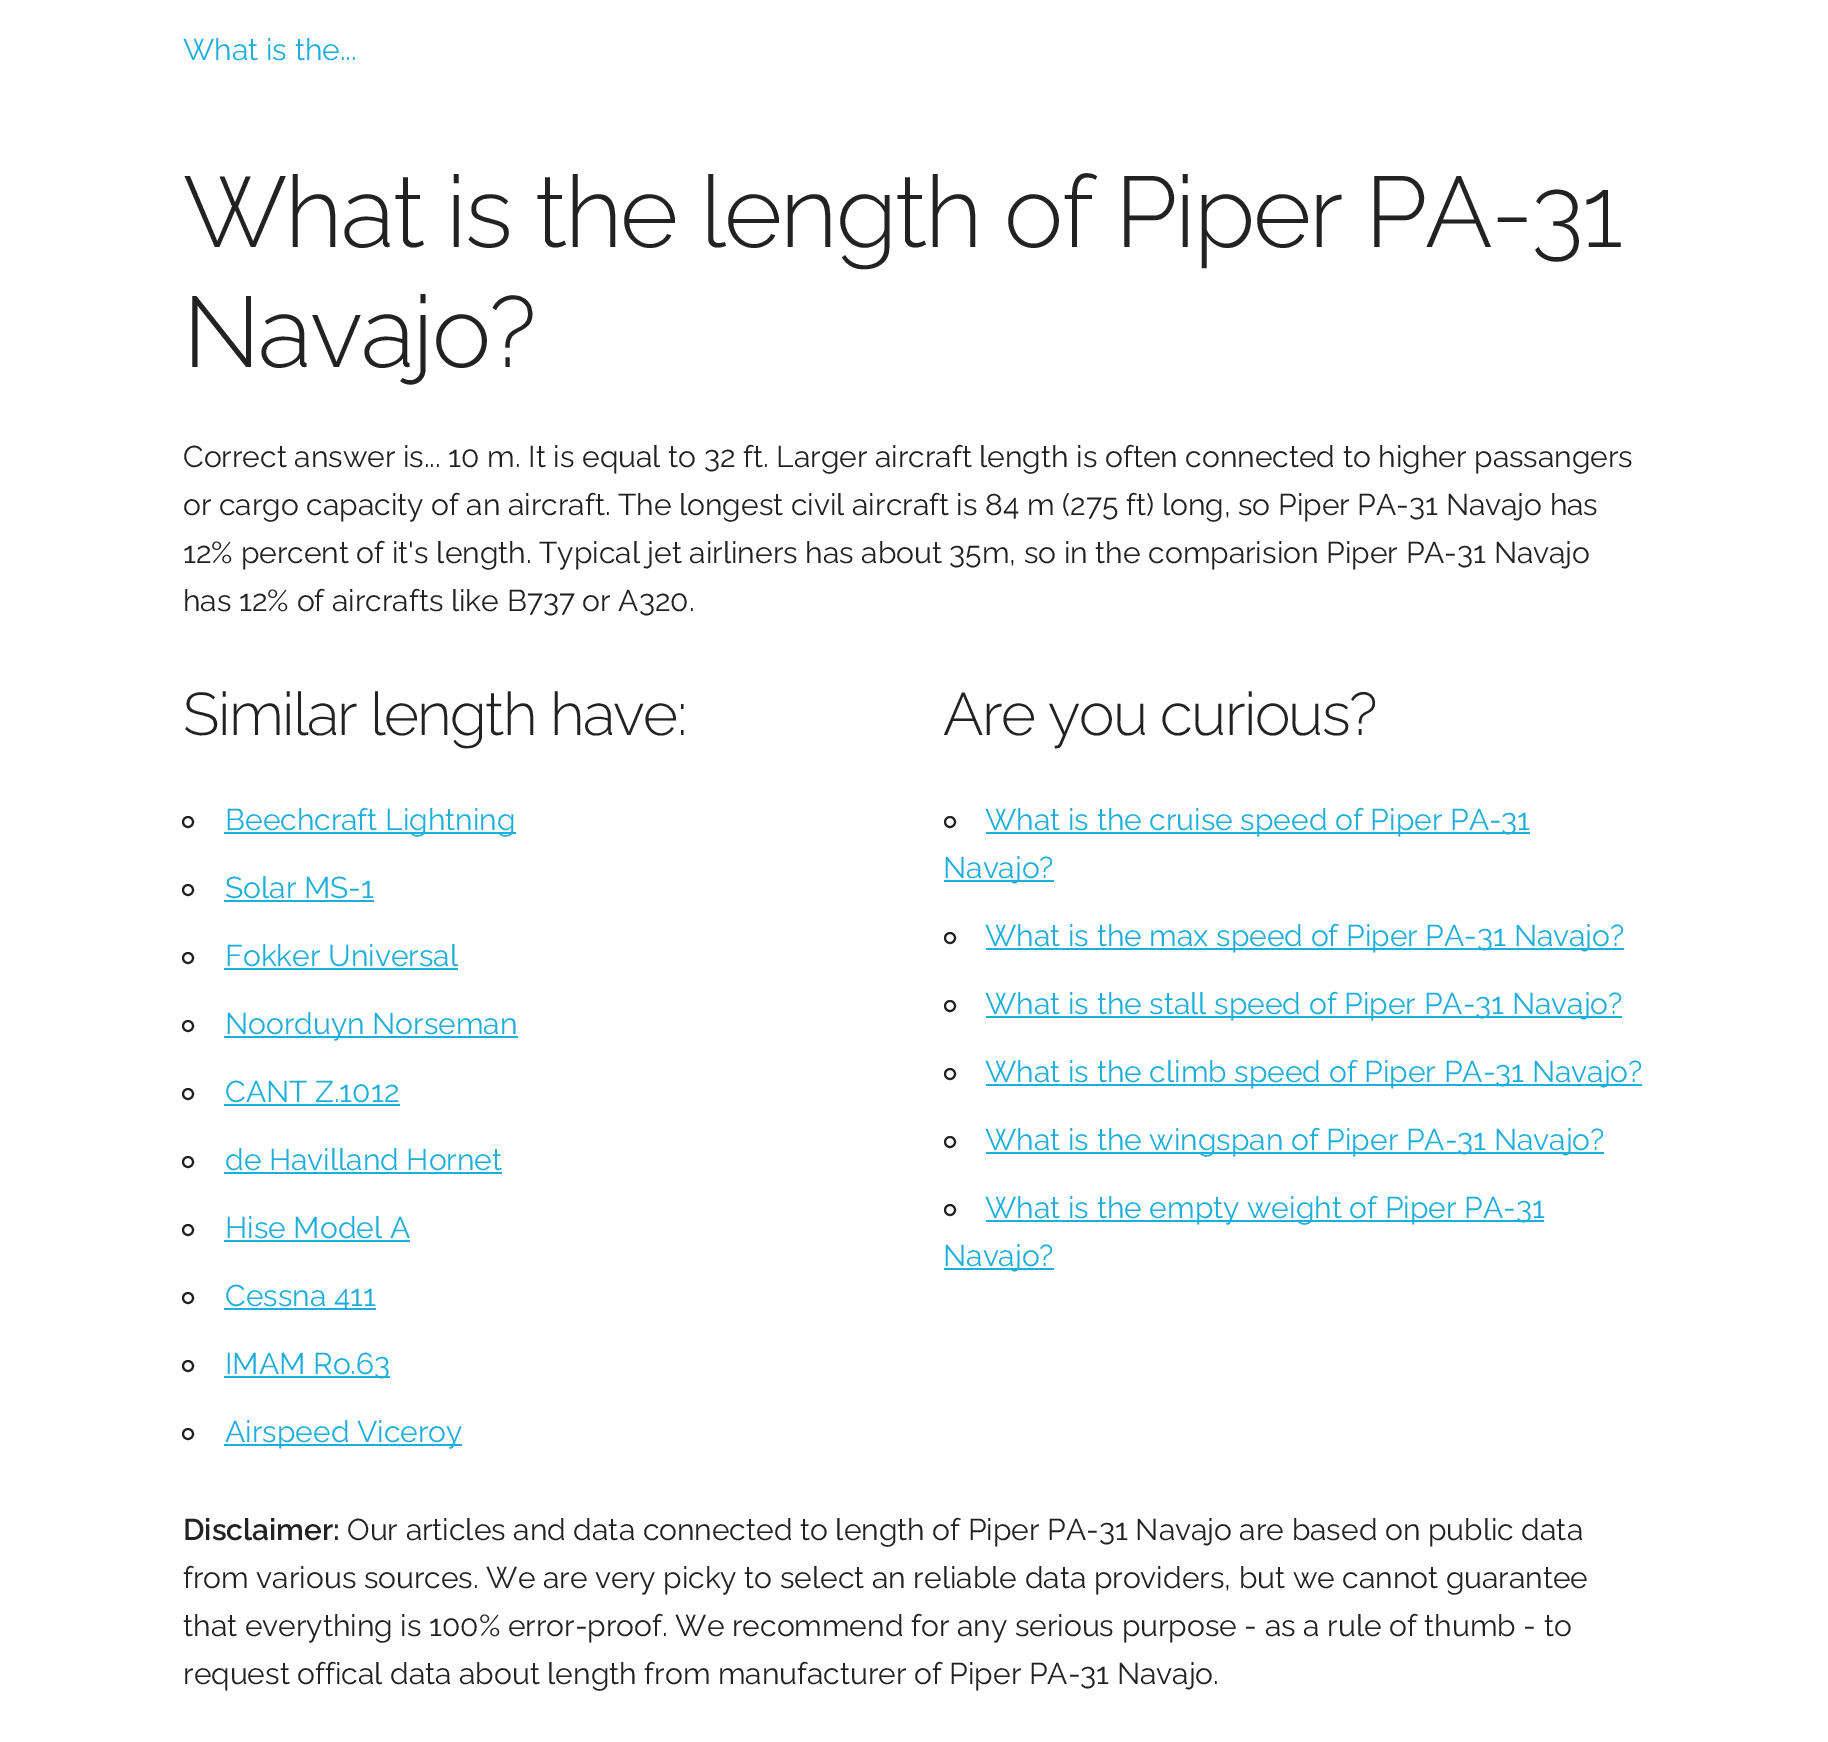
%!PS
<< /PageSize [1828 1742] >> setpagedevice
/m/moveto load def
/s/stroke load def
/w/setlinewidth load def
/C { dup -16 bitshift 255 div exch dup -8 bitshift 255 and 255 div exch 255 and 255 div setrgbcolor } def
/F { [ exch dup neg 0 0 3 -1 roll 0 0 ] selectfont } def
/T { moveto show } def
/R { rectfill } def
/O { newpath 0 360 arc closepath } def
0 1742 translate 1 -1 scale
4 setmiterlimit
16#FFFFFF C
0 0 1828 1742 R
/Raleway-Regular 30 F
16#1EAEDB C
(What is the...) 183 60 T
/Raleway-Light 100 F
16#222222 C
183 247 m -2 0 (What is the length of Piper PA-31) ashow
183 367 m -2 0 (Navajo?) ashow
/Raleway-Regular 30 F
(Correct answer is... 10 m. It is equal to 32 ft. Larger aircraft length is often connected to higher passangers) 183 467 T
(or cargo capacity of an aircraft. The longest civil aircraft is 84 m \(275 ft\) long, so Piper PA-31 Navajo has) 183 515 T
(12% percent of it's length. Typical jet airliners has about 35m, so in the comparision Piper PA-31 Navajo) 183 563 T
(has 12% of aircrafts like B737 or A320.) 183 611 T
/Raleway-Light 60 F
183 735 m -1.6 0 (Similar length have:) ashow
2 w
188 822 5 O s
16#1EAEDB C
224 832 292 2 R
/Raleway-Regular 30 F
(Beechcraft Lightning) 225 830 T
16#222222 C
188 890 5 O s
16#1EAEDB C
(Solar MS-1) 225 898 T
224 900 150 2 R
16#222222 C
188 958 5 O s
16#1EAEDB C
(Fokker Universal) 225 966 T
224 968 234 2 R
16#222222 C
188 1026 5 O s
16#1EAEDB C
224 1036 294 2 R
(Noorduyn Norseman) 225 1034 T
16#222222 C
188 1094 5 O s
16#1EAEDB C
(CANT Z.1012) 225 1102 T
224 1104 176 2 R
16#222222 C
188 1162 5 O s
16#1EAEDB C
(de Havilland Hornet) 225 1170 T
224 1172 278 2 R
16#222222 C
188 1230 5 O s
16#1EAEDB C
(Hise Model A) 225 1238 T
224 1240 186 2 R
16#222222 C
188 1298 5 O s
16#1EAEDB C
224 1308 152 2 R
(Cessna 411) 225 1306 T
16#222222 C
188 1366 5 O s
16#1EAEDB C
224 1376 166 2 R
(IMAM Ro.63) 225 1374 T
16#222222 C
188 1434 5 O s
16#1EAEDB C
224 1444 238 2 R
(Airspeed Viceroy) 225 1442 T
/Raleway-Light 60 F
16#222222 C
943 735 m -1.6 0 (Are you curious?) ashow
950 822 5 O s
16#1EAEDB C
986 832 544 2 R
/Raleway-Regular 30 F
(What is the cruise speed of Piper PA-31) 985 830 T
944 880 110 2 R
(Navajo?) 943 878 T
16#222222 C
950 938 5 O s
16#1EAEDB C
986 948 638 2 R
(What is the max speed of Piper PA-31 Navajo?) 985 946 T
16#222222 C
950 1006 5 O s
16#1EAEDB C
986 1016 636 2 R
(What is the stall speed of Piper PA-31 Navajo?) 985 1014 T
16#222222 C
950 1074 5 O s
16#1EAEDB C
986 1084 656 2 R
(What is the climb speed of Piper PA-31 Navajo?) 985 1082 T
16#222222 C
950 1142 5 O s
16#1EAEDB C
986 1152 618 2 R
(What is the wingspan of Piper PA-31 Navajo?) 985 1150 T
16#222222 C
950 1210 5 O s
16#1EAEDB C
986 1220 558 2 R
(What is the empty weight of Piper PA-31) 985 1218 T
944 1268 110 2 R
(Navajo?) 943 1266 T
/Raleway-SemiBold 30 F
16#222222 C
(Disclaimer:) 183 1540 T
/Raleway-Regular 30 F
(Our articles and data connected to length of Piper PA-31 Navajo are based on public data) 347 1540 T
(from various sources. We are very picky to select an reliable data providers, but we cannot guarantee) 183 1588 T
(that everything is 100% error-proof. We recommend for any serious purpose - as a rule of thumb - to) 183 1636 T
(request offical data about length from manufacturer of Piper PA-31 Navajo.) 183 1684 T
showpage
